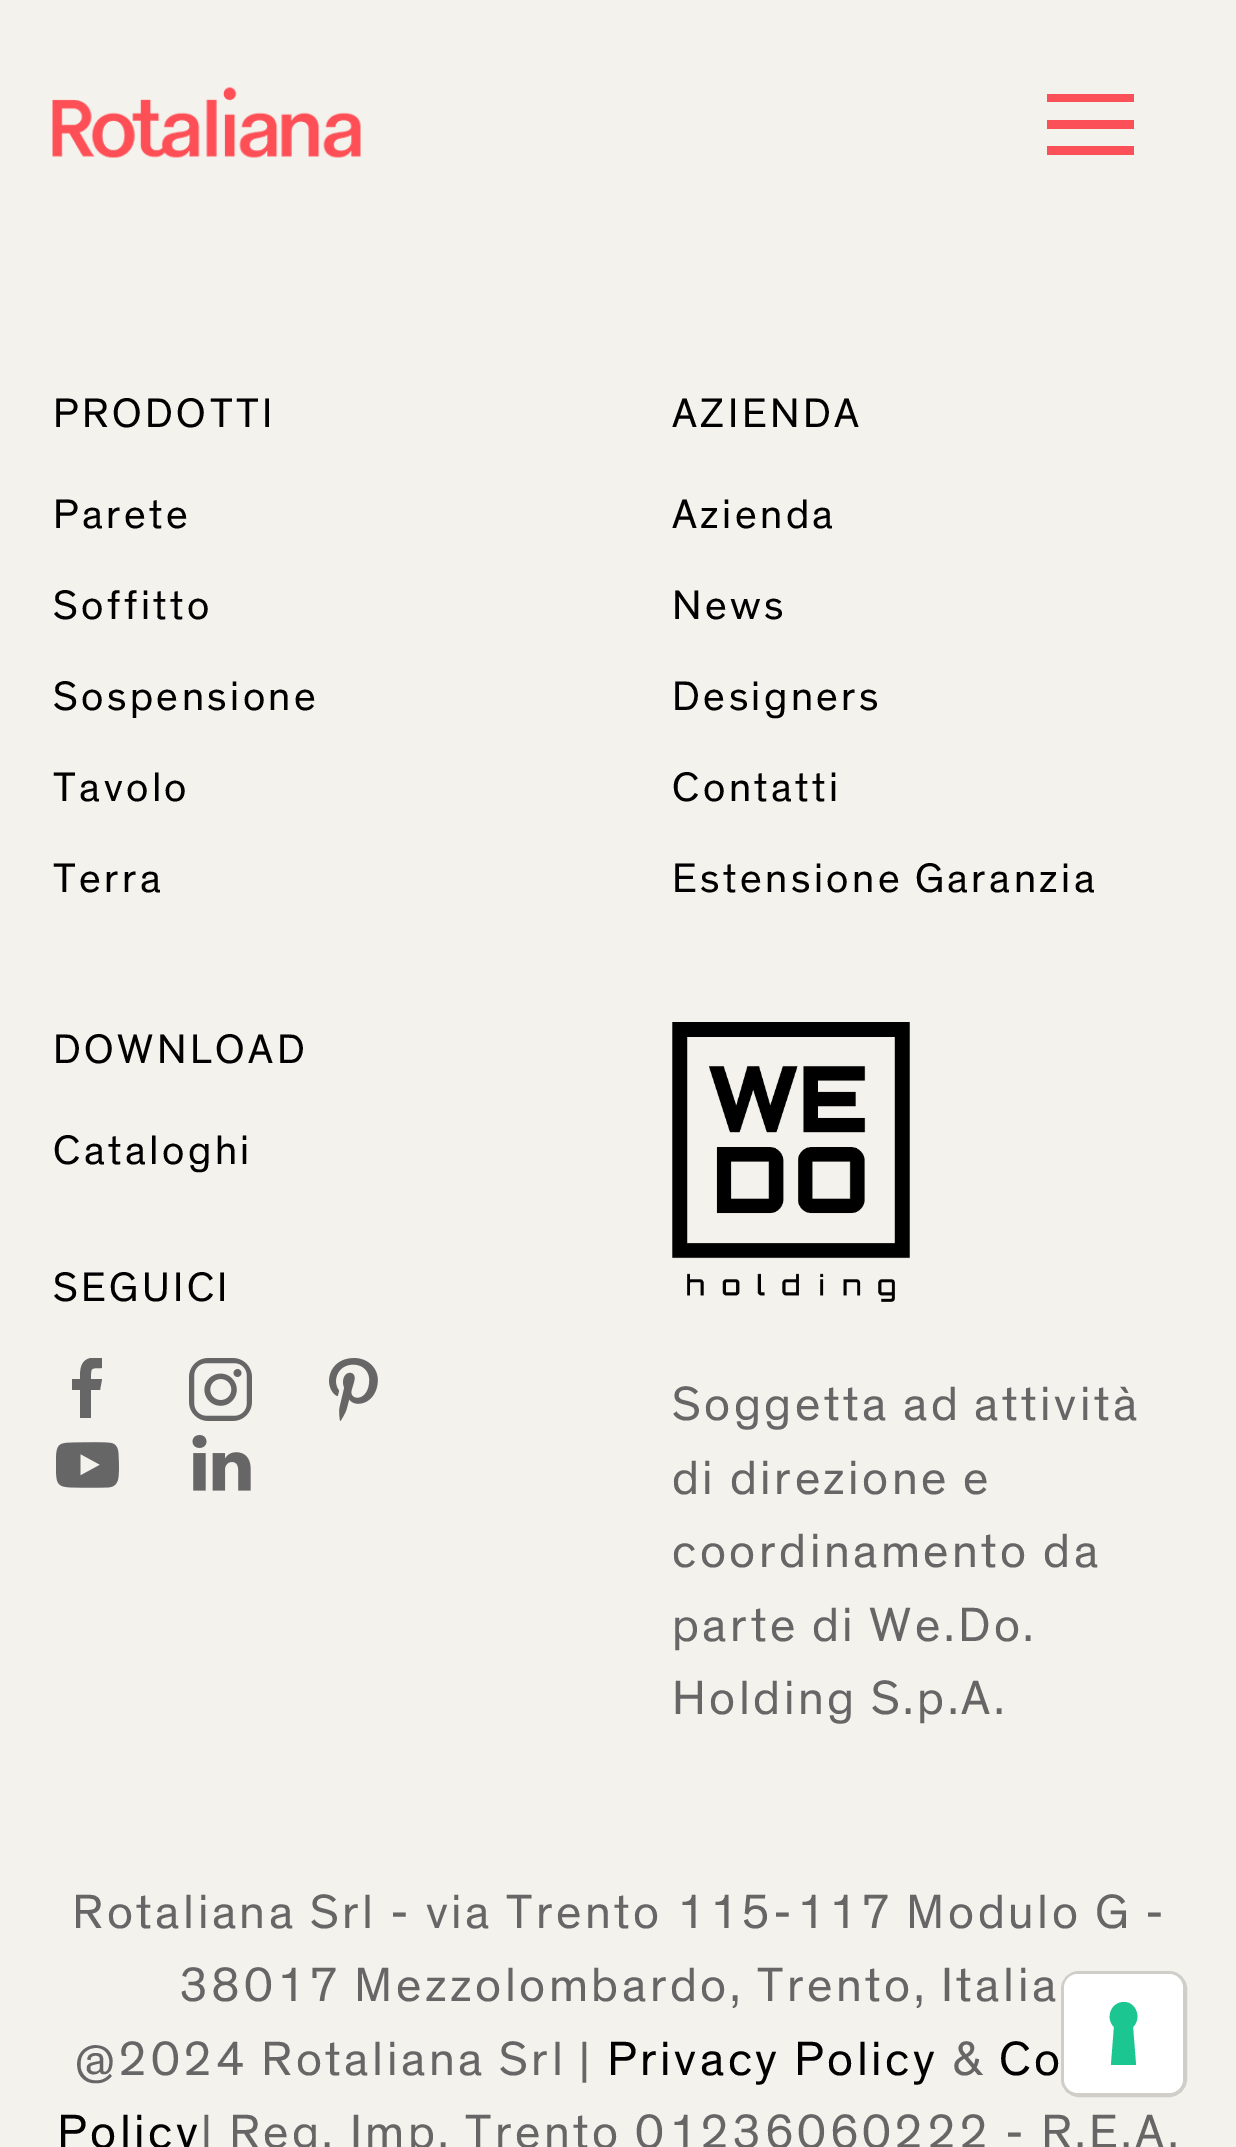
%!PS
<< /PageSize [1236 2147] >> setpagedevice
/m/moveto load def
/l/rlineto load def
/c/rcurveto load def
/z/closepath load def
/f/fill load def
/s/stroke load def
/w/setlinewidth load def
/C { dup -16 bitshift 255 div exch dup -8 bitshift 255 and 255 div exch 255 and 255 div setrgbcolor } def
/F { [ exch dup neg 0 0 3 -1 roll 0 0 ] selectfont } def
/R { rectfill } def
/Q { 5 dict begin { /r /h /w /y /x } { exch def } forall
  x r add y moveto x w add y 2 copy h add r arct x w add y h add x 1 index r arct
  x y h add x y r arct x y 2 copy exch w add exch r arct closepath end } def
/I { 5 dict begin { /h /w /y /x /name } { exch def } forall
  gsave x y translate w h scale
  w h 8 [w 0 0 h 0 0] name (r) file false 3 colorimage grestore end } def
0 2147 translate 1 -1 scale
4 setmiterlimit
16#F4F2ED C
0 0 1236 2147 R
(1.rgb) 52 87 309 71 I
16#FB5058 C
1047 120 87 9 R
1047 94 87 8 R
1047 146 87 9 R
/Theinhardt-Regular 42 F
16#000000 C
53 427 m 3.5 0 (PRODOTTI) ashow
53 528 m 3.5 0 (Parete) ashow
53 619 m 3.5 0 (Soffitto) ashow
53 710 m 3.5 0 (Sospensione) ashow
53 801 m 3.5 0 (Tavolo) ashow
53 892 m 3.5 0 (Terra) ashow
672 427 m 3.5 0 (AZIENDA) ashow
672 528 m 3.5 0 (Azienda) ashow
672 619 m 3.5 0 (News) ashow
672 710 m 3.5 0 (Designers) ashow
672 801 m 3.5 0 (Contatti) ashow
672 892 m 3.5 0 (Estensione Garanzia) ashow
53 1063 m 3.5 0 (DOWNLOAD) ashow
53 1164 m 3.5 0 (Cataloghi) ashow
53 1301 m 3.5 0 (SEGUICI) ashow
16#666666 C
91 1390 m 9 0 l 2 -11 l -11 0 l 0 -11 -1 -11 11 -11 c 0 -10 l -11 0 l -11 2 -11 12 -11 21 c -8 0 l 0 11 l 8 0 l 0 28 l 11 0 l z f
(2.rgb) 189 1358 63 63 I
(3.rgb) 329 1358 49 63 I
(4.rgb) 56 1442 63 46 I
(5.rgb) 192 1435 59 56 I
(6.rgb) 672 1022 238 280 I
/Theinhardt-Regular 49 F
672 1420 m 3.5 0 (Soggetta ad attività) ashow
672 1494 m 3.5 0 (di direzione e) ashow
672 1567 m 3.5 0 (coordinamento da) ashow
672 1641 m 3.5 0 (parte di We.Do.) ashow
672 1714 m 3.5 0 (Holding S.p.A.) ashow
72 1928 m 3.5 0 (Rotaliana Srl - via Trento 115-117 Modulo G -) ashow
179 2001 m 3.5 0 (38017 Mezzolombardo, Trento, Italia) ashow
75 2075 m 3.5 0 (@2024 Rotaliana Srl |) ashow
16#000000 C
607 2075 m 3.5 0 (Privacy Policy) ashow
16#666666 C
952 2075 m 3.5 0 (&) ashow
16#000000 C
999 2075 m 3.5 0 (Co) ashow
57 2148 m 3.5 0 (Policy) ashow
16#666666 C
201 2148 m 3.5 0 (| Reg. Imp. Trento 01236060222 - R.E.A.) ashow
16#CFCEC9 C
4 w
1063 1973 122 122 16 Q s
16#FFFFFF C
1064 1974 119 119 14 Q f
16#1CC691 C
1124 2002 m 12 0 18 16 9 25 c 3 38 l -25 0 l 3 -38 l -9 -9 -3 -25 10 -25 c z eofill
showpage
